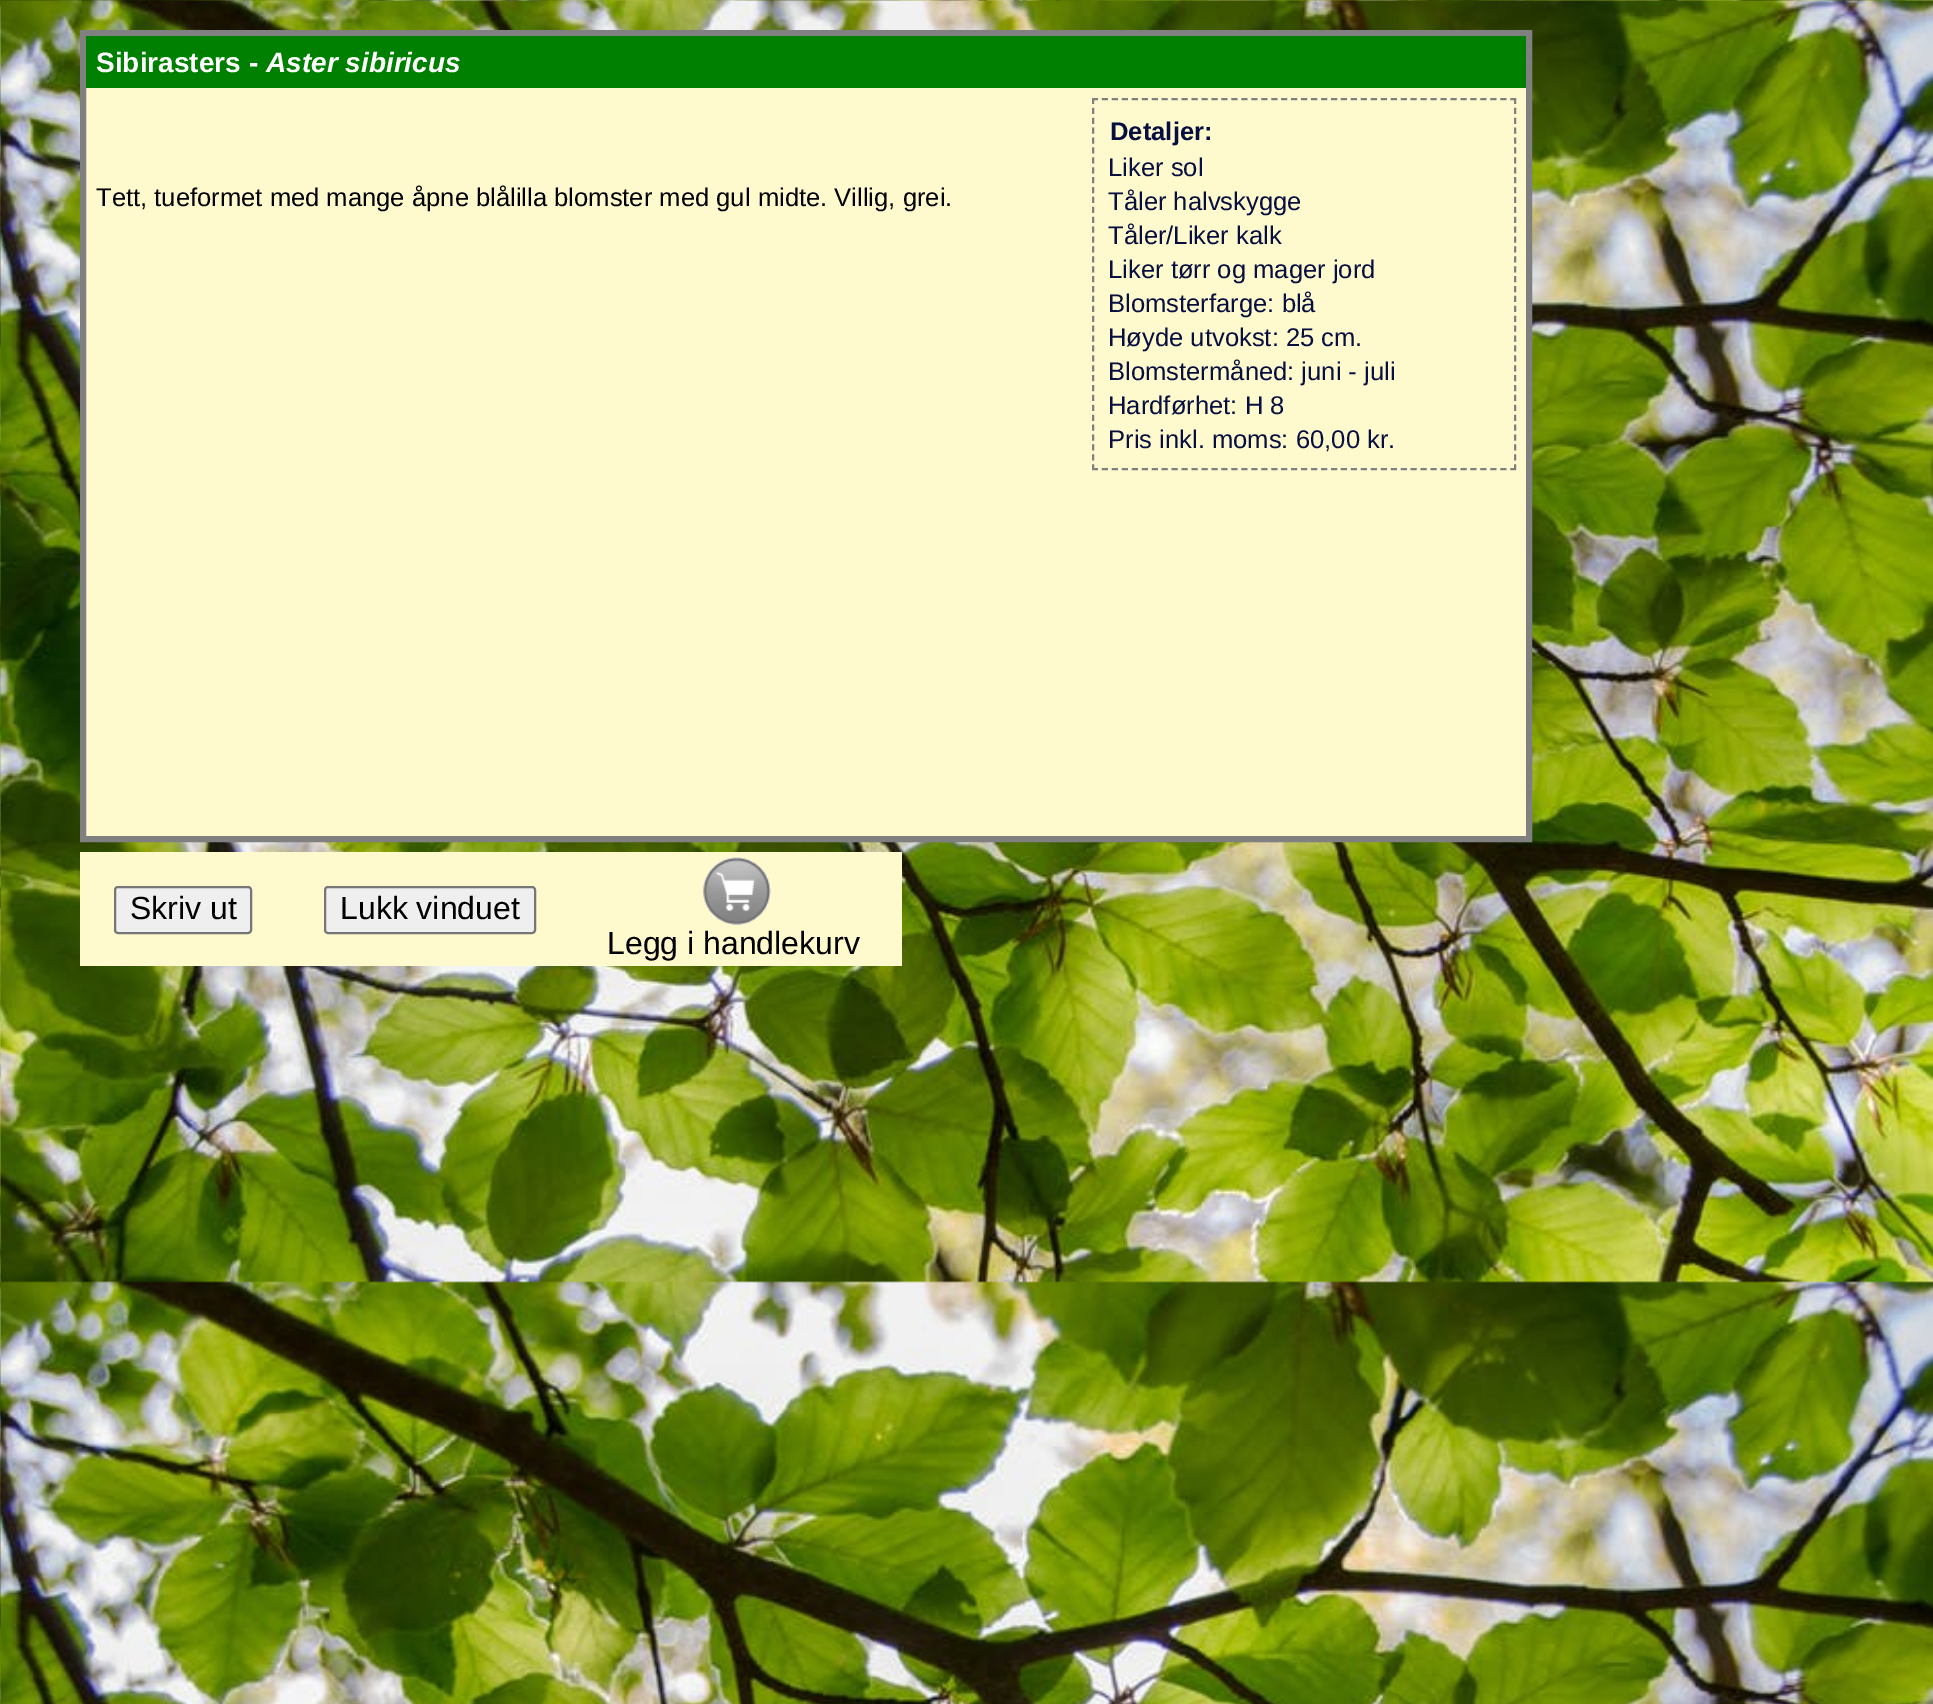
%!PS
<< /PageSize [1933 1704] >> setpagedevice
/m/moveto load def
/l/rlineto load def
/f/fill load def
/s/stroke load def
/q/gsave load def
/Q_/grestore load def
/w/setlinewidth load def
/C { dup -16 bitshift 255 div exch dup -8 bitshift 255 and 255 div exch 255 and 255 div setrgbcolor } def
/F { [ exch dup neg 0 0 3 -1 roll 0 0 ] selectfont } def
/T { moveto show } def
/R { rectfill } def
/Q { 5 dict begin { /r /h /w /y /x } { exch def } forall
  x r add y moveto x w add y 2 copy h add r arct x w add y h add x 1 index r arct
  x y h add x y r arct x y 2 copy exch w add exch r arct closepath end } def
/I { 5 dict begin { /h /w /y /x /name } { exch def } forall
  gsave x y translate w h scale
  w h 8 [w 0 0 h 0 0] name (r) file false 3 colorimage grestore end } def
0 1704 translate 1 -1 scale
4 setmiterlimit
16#FFFFFF C
0 0 1933 1704 R
(1.rgb) 0 0 1933 1704 I
16#FFFACD C
86 88 1440 748 R
16#808080 C
6 w
83 33 1446 806 rectstroke
16#008000 C
86 36 1440 52 R
/LiberationSans-Bold 28 F
16#FFFFFF C
(Sibirasters -) 96 72 T
/LiberationSans-BoldItalic 28 F
(Aster sibiricus) 266 72 T
/LiberationSans-Regular 25.6 F
16#000000 C
(Tett, tueformet med mange åpne blålilla blomster med gul midte. Villig, grei.) 96 206 T
16#808080 C
2 w
[6 3.96] 0 setdash
1092 99 m 424 0 l s
[6 3.9] 0 setdash
1515 98 m 0 372 l s
[6 3.96] 0 setdash
1092 469 m 424 0 l s
[6 3.9] 0 setdash
1093 98 m 0 372 l s
/LiberationSans-Bold 25.6 F
16#060F40 C
(Detaljer:) 1110 140 T
/LiberationSans-Regular 25.6 F
(Liker sol) 1108 176 T
(Tåler halvskygge) 1108 210 T
(Tåler/Liker kalk) 1108 244 T
(Liker tørr og mager jord) 1108 278 T
(Blomsterfarge: blå) 1108 312 T
(Høyde utvokst: 25 cm.) 1108 346 T
(Blomstermåned: juni - juli) 1108 380 T
(Hardførhet: H 8) 1108 414 T
(Pris inkl. moms: 60,00 kr.) 1108 448 T
16#FFFACD C
80 852 822 114 R
16#EFEFEF C
115 887 136 46 3 Q q f Q_
16#767676 C
[] 0 setdash
s
/LiberationSans-Regular 32 F
16#000000 C
(Skriv ut) 130 919 T
16#EFEFEF C
325 887 210 46 3 Q q f Q_
16#767676 C
s
16#000000 C
(Lukk vinduet) 340 919 T
(2.rgb) 703 857 68 68 I
(Legg i handlekurv) 607 954 T
showpage
